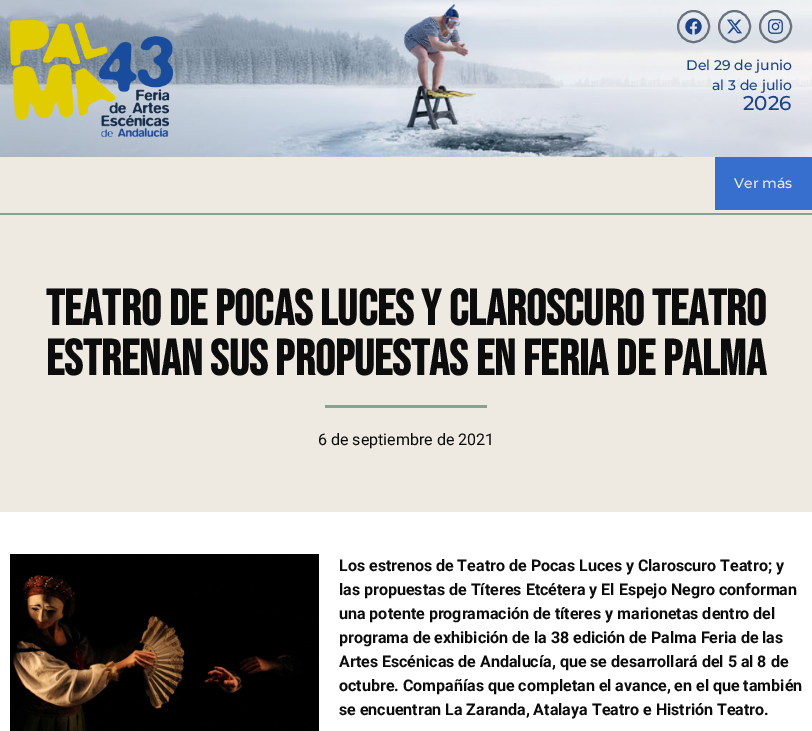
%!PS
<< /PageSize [812 731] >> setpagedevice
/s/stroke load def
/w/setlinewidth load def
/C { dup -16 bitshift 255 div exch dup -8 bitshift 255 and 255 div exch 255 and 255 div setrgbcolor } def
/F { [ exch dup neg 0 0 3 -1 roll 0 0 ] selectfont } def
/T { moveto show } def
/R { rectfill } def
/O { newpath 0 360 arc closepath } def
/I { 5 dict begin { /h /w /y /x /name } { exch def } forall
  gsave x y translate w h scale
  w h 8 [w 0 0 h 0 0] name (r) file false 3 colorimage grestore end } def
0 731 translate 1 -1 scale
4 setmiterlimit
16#FFFFFF C
0 0 812 731 R
(1.rgb) 0 0 812 157 I
(2.rgb) 10 20 163 117 I
16#69727D C
2 w
693.5 26.5 15.5 O s
(3.rgb) 685 18 17 17 I
734.5 26.5 15.5 O s
(4.rgb) 727 19 15 15 I
775.5 26.5 15.5 O s
(5.rgb) 768 19 15 15 I
/Montserrat-Medium 14 F
16#1C4386 C
(Del 29 de junio) 686 70 T
(al 3 de julio) 712 90 T
/Montserrat-Medium 20 F
(2026) 743 110 T
16#EEEAE1 C
0 157 812 56 R
16#89A190 C
0 213 812 2 R
16#376FCF C
715 157 97 53 R
/Montserrat-Medium 14 F
16#EEEAE1 C
(Ver más) 734 188 T
0 215 812 297 R
/BebasNeue-Bold 50 F
16#0C0C0C C
(Teatro de Pocas Luces y Claroscuro Teatro) 46 325 T
(estrenan sus propuestas en Feria de Palma) 46 375 T
16#89A190 C
325 405 162 3 R
/Roboto-Regular 16 F
16#0C0C0C C
(6 de septiembre de 2021) 318 445 T
(6.rgb) 10 554 309 177 I
/Roboto-Bold 16 F
(Los estrenos de Teatro de Pocas Luces y Claroscuro Teatro; y) 339 571 T
(las propuestas de Títeres Etcétera y El Espejo Negro conforman) 339 595 T
(una potente programación de títeres y marionetas dentro del) 339 619 T
(programa de exhibición de la 38 edición de Palma Feria de las) 339 643 T
(Artes Escénicas de Andalucía, que se desarrollará del 5 al 8 de) 339 667 T
(octubre. Compañías que completan el avance, en el que también) 339 691 T
(se encuentran La Zaranda, Atalaya Teatro e Histrión Teatro.) 339 715 T
showpage
